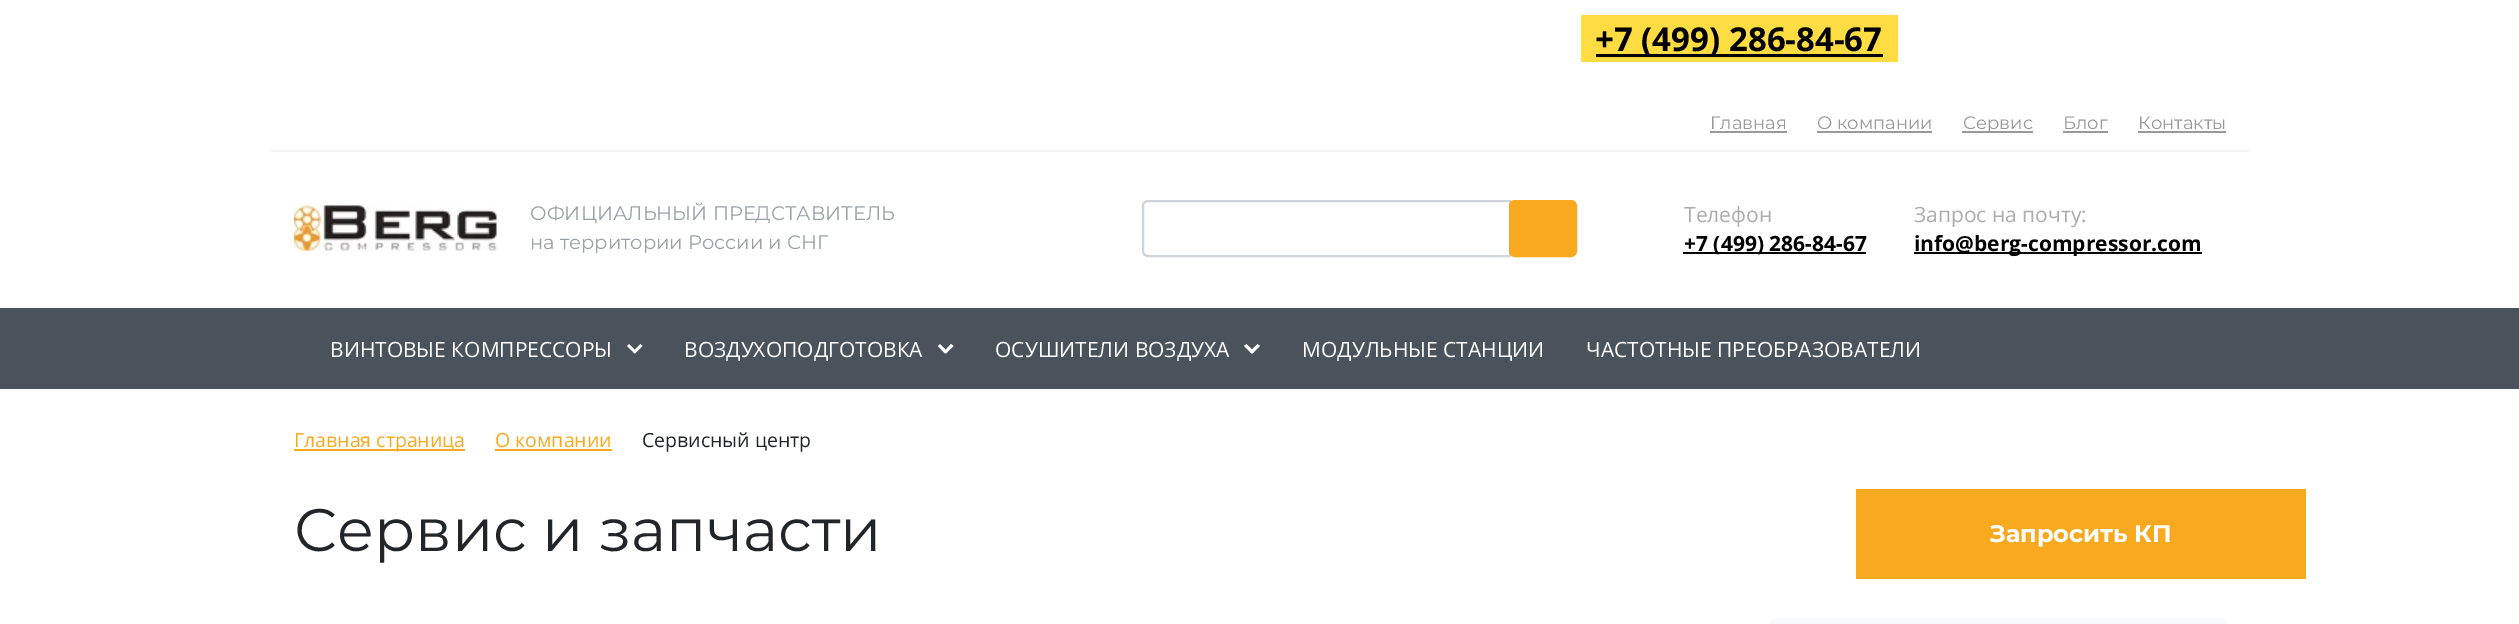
%!PS
<< /PageSize [2519 624] >> setpagedevice
/m/moveto load def
/l/rlineto load def
/c/rcurveto load def
/z/closepath load def
/f/fill load def
/s/stroke load def
/q/gsave load def
/Q_/grestore load def
/w/setlinewidth load def
/C { dup -16 bitshift 255 div exch dup -8 bitshift 255 and 255 div exch 255 and 255 div setrgbcolor } def
/F { [ exch dup neg 0 0 3 -1 roll 0 0 ] selectfont } def
/T { moveto show } def
/R { rectfill } def
/Q { 5 dict begin { /r /h /w /y /x } { exch def } forall
  x r add y moveto x w add y 2 copy h add r arct x w add y h add x 1 index r arct
  x y h add x y r arct x y 2 copy exch w add exch r arct closepath end } def
/I { 5 dict begin { /h /w /y /x /name } { exch def } forall
  gsave x y translate w h scale
  w h 8 [w 0 0 h 0 0] name (r) file false 3 colorimage grestore end } def
0 624 translate 1 -1 scale
4 setmiterlimit
16#FFFFFF C
0 0 2519 624 R
16#FFDC42 C
1581 15 317 47 R
16#000000 C
1596 54 287 3 R
/OpenSans-Bold 33 F
(+7 \(499\) 286-84-67) 1595 51 T
16#F6F6F6 C
270 150 1980 2 R
/Montserrat-Regular 18 F
16#999999 C
(Главная) 1710 129 T
1710 131 77 2 R
(О компании) 1817 129 T
1817 131 115 2 R
1962 131 71 2 R
(Сервис) 1963 129 T
(Блог) 2063 129 T
2063 131 45 2 R
(Контакты) 2138 129 T
2138 131 88 2 R
(1.rgb) 294 205 203 46 I
/Montserrat-Regular 19.5 F
16#99A0A8 C
(ОФИЦИАЛЬНЫЙ ПРЕДСТАВИТЕЛЬ) 530 220 T
(на территории России и СНГ) 530 249 T
16#CED4DA C
2 w
1148 201 m 362 0 l 0 55 l -362 0 l -3 0 -5 -2 -5 -5 c 0 -45 l 0 -3 2 -5 5 -5 c z s
16#F9A91D C
1510 201 66 55 5 Q q f Q_
s
/OpenSans-Regular 21 F
16#ADADAD C
(Телефон) 1684 222 T
16#000000 C
1683 252 183 2 R
/OpenSans-Bold 21 F
(+7 \(499\) 286-84-67) 1684 251 T
/OpenSans-Regular 21 F
16#ADADAD C
(Запрос на почту:) 1914 222 T
16#000000 C
1914 252 288 2 R
/OpenSans-Bold 21 F
(info@berg-compressor.com) 1914 251 T
16#4A525B C
0 308 2519 81 R
/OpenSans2-Regular 21 F
16#FFFFFF C
(ВИНТОВЫЕ КОМПРЕССОРЫ) 330 357 T
633 351.5 m 7.5 -7.5 l 2 2 l -7.5 7.5 l z f
629 344 m 7.5 7.5 l -2 2 l -7.5 -7.5 l z f
(ВОЗДУХОПОДГОТОВКА) 684 357 T
944 351.5 m 7 -7.5 l 2.5 2 l -7.5 7.5 l z f
940 344 m 7.5 7.5 l -2.5 2 l -7 -7.5 l z f
(ОСУШИТЕЛИ ВОЗДУХА) 995 357 T
1250 351.5 m 7.5 -7.5 l 2.5 2 l -7.5 7.5 l z f
1246.5 344 m 7.5 7.5 l -2.5 2 l -7.5 -7.5 l z f
(МОДУЛЬНЫЕ СТАНЦИИ) 1302 357 T
(ЧАСТОТНЫЕ ПРЕОБРАЗОВАТЕЛИ) 1586 357 T
16#F9A91D C
294 449 171 2 R
/OpenSans-Regular 19.5 F
(Главная страница) 294 447 T
(О компании) 495 447 T
495 449 117 2 R
16#212529 C
(Сервисный центр) 642 447 T
/Montserrat-Regular 60 F
(Сервис и запчасти) 294 551 T
16#F9A91D C
1856 489 450 90 R
/Montserrat-Bold 24 F
16#FFFFFF C
(Запросить КП) 1990 542 T
16#F8F9FA C
1770 618 456 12 6 Q f
showpage
